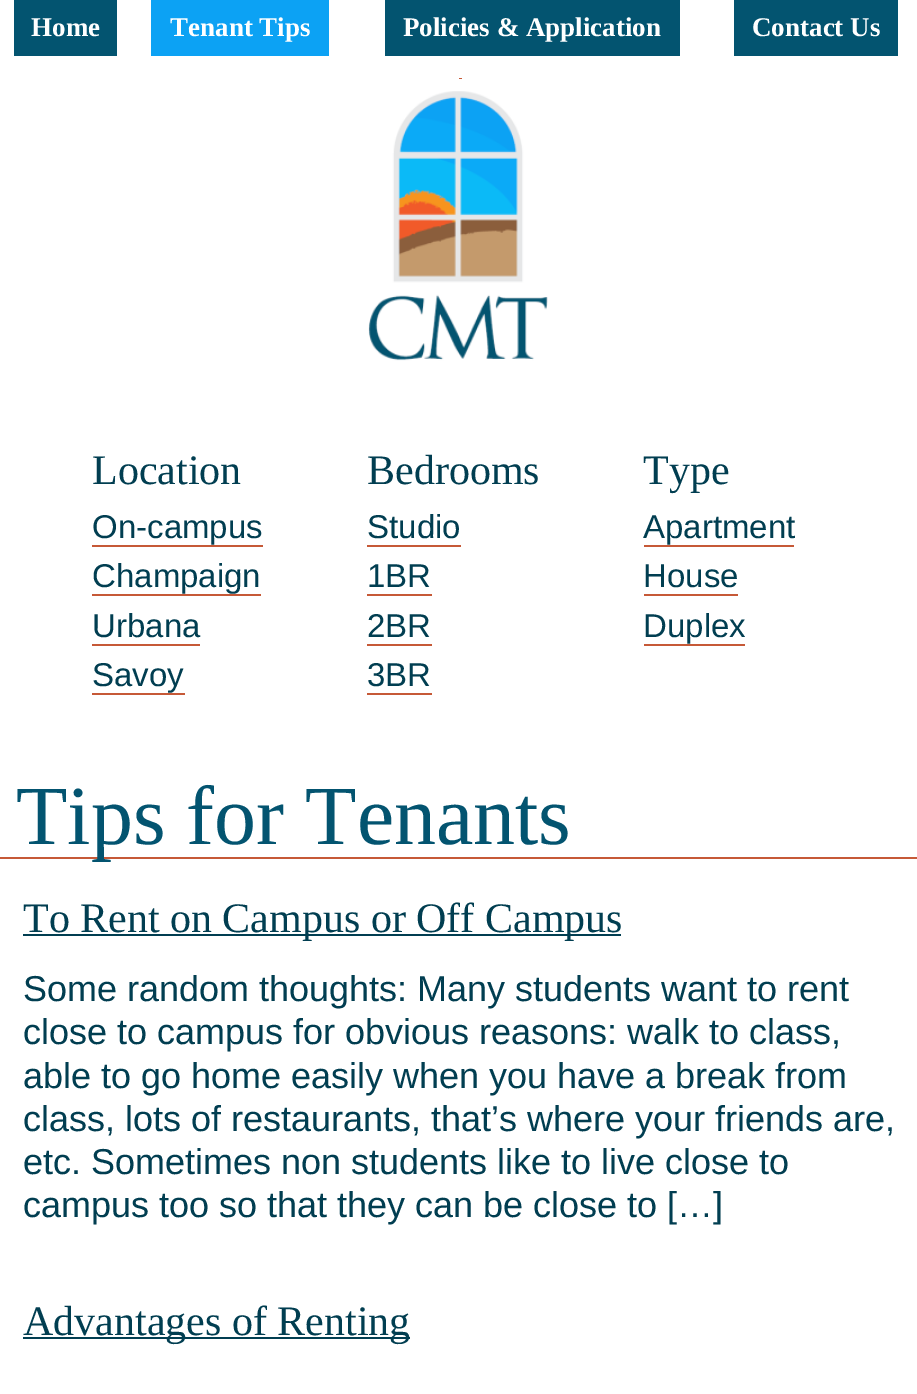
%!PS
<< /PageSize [917 1394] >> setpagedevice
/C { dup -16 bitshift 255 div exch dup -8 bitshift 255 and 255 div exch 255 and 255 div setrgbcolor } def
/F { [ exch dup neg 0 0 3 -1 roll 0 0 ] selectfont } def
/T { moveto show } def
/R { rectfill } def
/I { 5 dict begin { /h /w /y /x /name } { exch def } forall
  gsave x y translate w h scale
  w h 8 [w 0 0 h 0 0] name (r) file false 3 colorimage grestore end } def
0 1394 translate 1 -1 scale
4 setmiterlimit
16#FFFFFF C
0 0 917 1394 R
16#035470 C
14 0 103 56 R
/LiberationSerif-Bold 27 F
16#FFFFFF C
(Home) 31 36 T
16#0CA2F4 C
151 0 178 56 R
16#FFFFFF C
(Tenant Tips) 170 36 T
16#035470 C
385 0 295 56 R
16#FFFFFF C
(Policies & Application) 403 36 T
16#035470 C
734 0 164 56 R
16#FFFFFF C
(Contact Us) 752 36 T
16#C65937 C
459 78 3 1 R
(1.rgb) 368 91 180 270 I
/LiberationSerif-Regular 42 F
16#013E51 C
(Location) 92 484 T
/LiberationSans-Regular 33 F
(On-campus) 92 538 T
16#C65937 C
92 545 171 2 R
16#013E51 C
(Champaign) 92 587 T
16#C65937 C
92 594 169 2 R
16#013E51 C
(Urbana) 92 637 T
16#C65937 C
92 644 108 2 R
16#013E51 C
(Savoy) 92 686 T
16#C65937 C
92 693 93 2 R
/LiberationSerif-Regular 42 F
16#013E51 C
(Bedrooms) 367 484 T
/LiberationSans-Regular 33 F
(Studio) 367 538 T
16#C65937 C
367 545 94 2 R
16#013E51 C
(1BR) 367 587 T
16#C65937 C
367 594 65 2 R
16#013E51 C
(2BR) 367 637 T
16#C65937 C
367 644 65 2 R
16#013E51 C
(3BR) 367 686 T
16#C65937 C
367 693 65 2 R
/LiberationSerif-Regular 42 F
16#013E51 C
(Type) 643 484 T
/LiberationSans-Regular 33 F
(Apartment) 643 538 T
16#C65937 C
644 545 150 2 R
16#013E51 C
(House) 643 587 T
16#C65937 C
644 594 94 2 R
16#013E51 C
(Duplex) 643 637 T
16#C65937 C
644 644 101 2 R
0 857 917 2 R
/LiberationSerif-Regular 84 F
16#035470 C
(Tips for Tenants) 16 844 T
16#013E51 C
23 934 598 2 R
/LiberationSerif-Regular 42 F
(To Rent on Campus or Off Campus) 23 932 T
/LiberationSans-Regular 36 F
(Some random thoughts: Many students want to rent) 23 1001 T
(close to campus for obvious reasons: walk to class,) 23 1044 T
(able to go home easily when you have a break from) 23 1088 T
(class, lots of restaurants, that’s where your friends are,) 23 1131 T
(etc. Sometimes non students like to live close to) 23 1174 T
(campus too so that they can be close to […]) 23 1217 T
23 1337 387 2 R
/LiberationSerif-Regular 42 F
(Advantages of Renting) 23 1335 T
showpage
